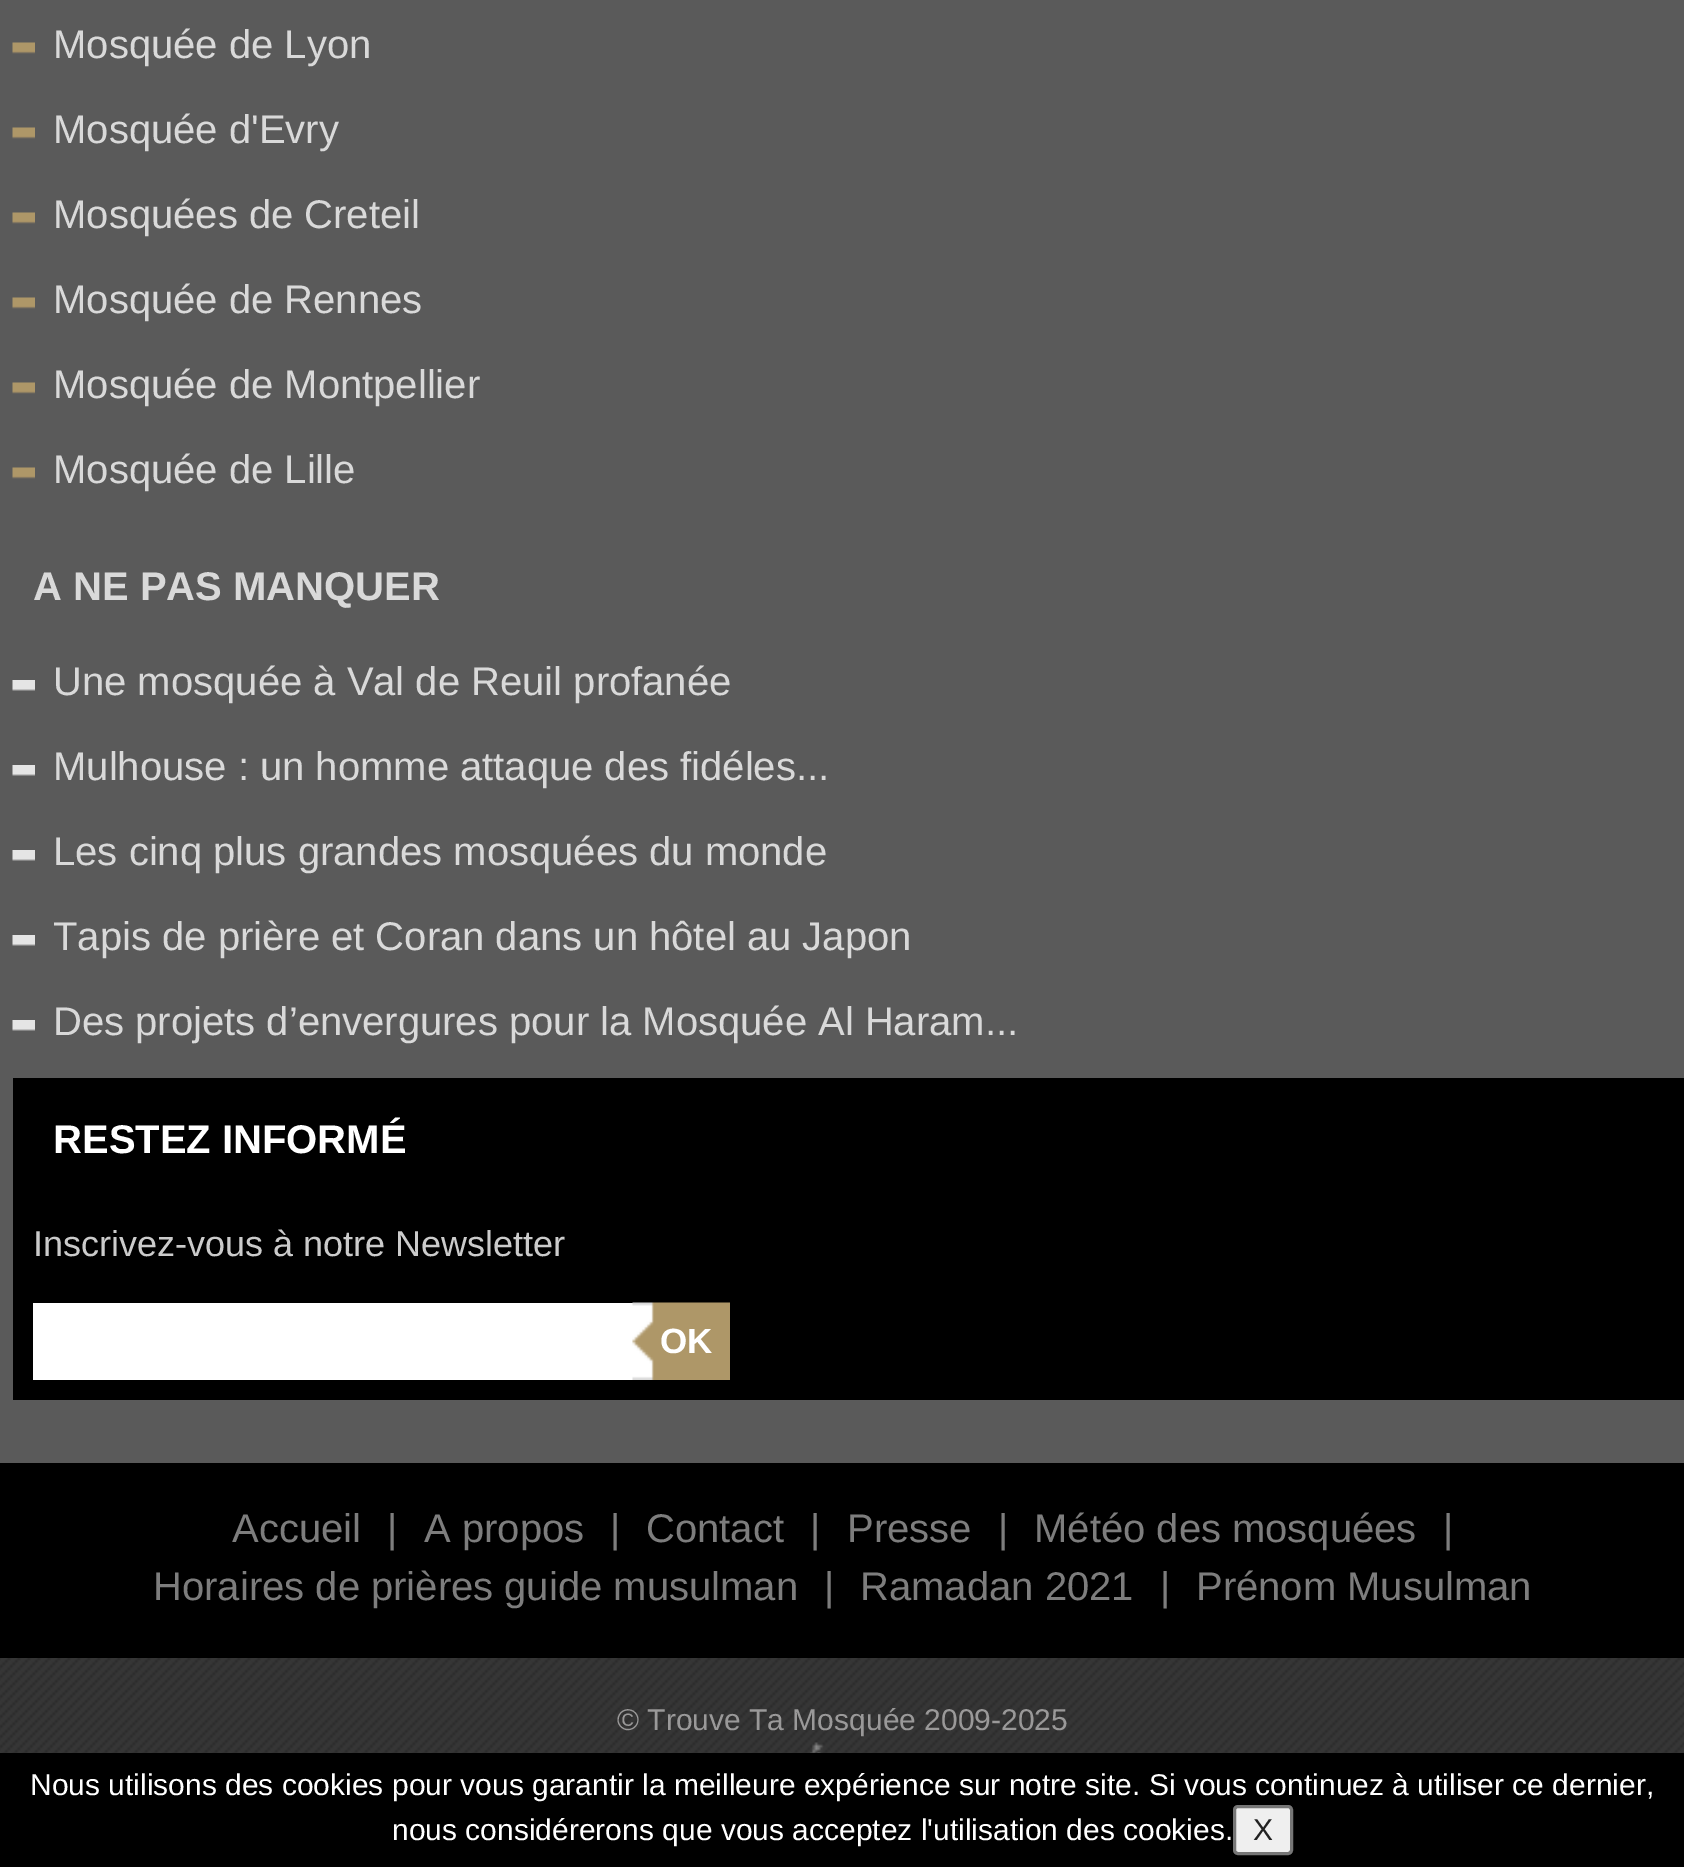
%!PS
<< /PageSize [1684 1867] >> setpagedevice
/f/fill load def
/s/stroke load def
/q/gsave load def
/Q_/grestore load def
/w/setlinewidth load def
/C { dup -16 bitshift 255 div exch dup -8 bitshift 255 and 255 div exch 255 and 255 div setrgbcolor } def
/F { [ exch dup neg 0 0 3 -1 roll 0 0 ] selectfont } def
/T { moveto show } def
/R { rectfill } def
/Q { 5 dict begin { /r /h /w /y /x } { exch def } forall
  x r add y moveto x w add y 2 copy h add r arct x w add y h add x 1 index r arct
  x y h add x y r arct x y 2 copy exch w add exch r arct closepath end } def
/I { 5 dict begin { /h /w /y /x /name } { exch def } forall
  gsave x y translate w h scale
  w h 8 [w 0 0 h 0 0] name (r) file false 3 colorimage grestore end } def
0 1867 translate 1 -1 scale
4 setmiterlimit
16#FFFFFF C
0 0 1684 1867 R
(1.rgb) 0 1658 1684 95 I
16#5A5A5A C
0 0 1684 1463 R
(2.rgb) 12 42 23 12 I
/LiberationSans-Regular 40 F
16#D9D9D9 C
(Mosquée de Lyon) 53 58 T
(2.rgb) 12 127 23 12 I
(Mosquée d'Evry) 53 143 T
(2.rgb) 12 212 23 12 I
(Mosquées de Creteil) 53 228 T
(2.rgb) 12 297 23 12 I
(Mosquée de Rennes) 53 313 T
(3.rgb) 12 382 23 12 I
(Mosquée de Montpellier) 53 398 T
(2.rgb) 12 467 23 12 I
(Mosquée de Lille) 53 483 T
/LiberationSans-Bold 40 F
(A NE PAS MANQUER) 33 600 T
(4.rgb) 12 680 23 11 I
/LiberationSans-Regular 40 F
(Une mosquée à Val de Reuil profanée) 53 695 T
(4.rgb) 12 765 23 11 I
(Mulhouse : un homme attaque des fidéles...) 53 780 T
(4.rgb) 12 850 23 11 I
(Les cinq plus grandes mosquées du monde) 53 865 T
(4.rgb) 12 935 23 11 I
(Tapis de prière et Coran dans un hôtel au Japon) 53 950 T
(4.rgb) 12 1020 23 11 I
(Des projets d’envergures pour la Mosquée Al Haram...) 53 1035 T
16#000000 C
13 1078 1671 322 R
/LiberationSans-Bold 40 F
16#FFFFFF C
(RESTEZ INFORMÉ) 53 1153 T
/LiberationSans-Regular 36 F
16#CBCBCB C
(Inscrivez-vous à notre Newsletter) 33 1256 T
16#FFFFFF C
33 1303 600 77 R
(5.rgb) 632 1302 98 78 I
/LiberationSans-Bold 35 F
(OK) 660 1353 T
16#000000 C
0 1463 1684 195 R
/LiberationSans-Regular 40 F
16#7D7D7D C
(Accueil) 232 1542 T
(|) 387 1542 T
(A propos) 424 1542 T
(|) 610 1542 T
(Contact) 646 1542 T
(|) 810 1542 T
(Presse) 847 1542 T
(|) 998 1542 T
(Météo des mosquées) 1034 1542 T
(|) 1443 1542 T
(Horaires de prières guide musulman) 153 1600 T
(|) 824 1600 T
(Ramadan 2021) 860 1600 T
(|) 1160 1600 T
(Prénom Musulman) 1196 1600 T
/LiberationSans-Regular 30 F
16#9A9999 C
(© Trouve Ta Mosquée 2009-2025) 617 1730 T
(6.rgb) 810 1742 14 11 I
16#000000 C
0 1753 1684 114 R
16#FFFFFF C
(Nous utilisons des cookies pour vous garantir la meilleure expérience sur notre site. Si vous continuez à utiliser ce dernier,) 30 1795 T
(nous considérerons que vous acceptez l'utilisation des cookies.) 392 1840 T
16#EFEFEF C
1234.5 1806.5 57 47 3.5 Q q f Q_
16#767676 C
3 w
s
16#222222 C
(X) 1253 1840 T
showpage
